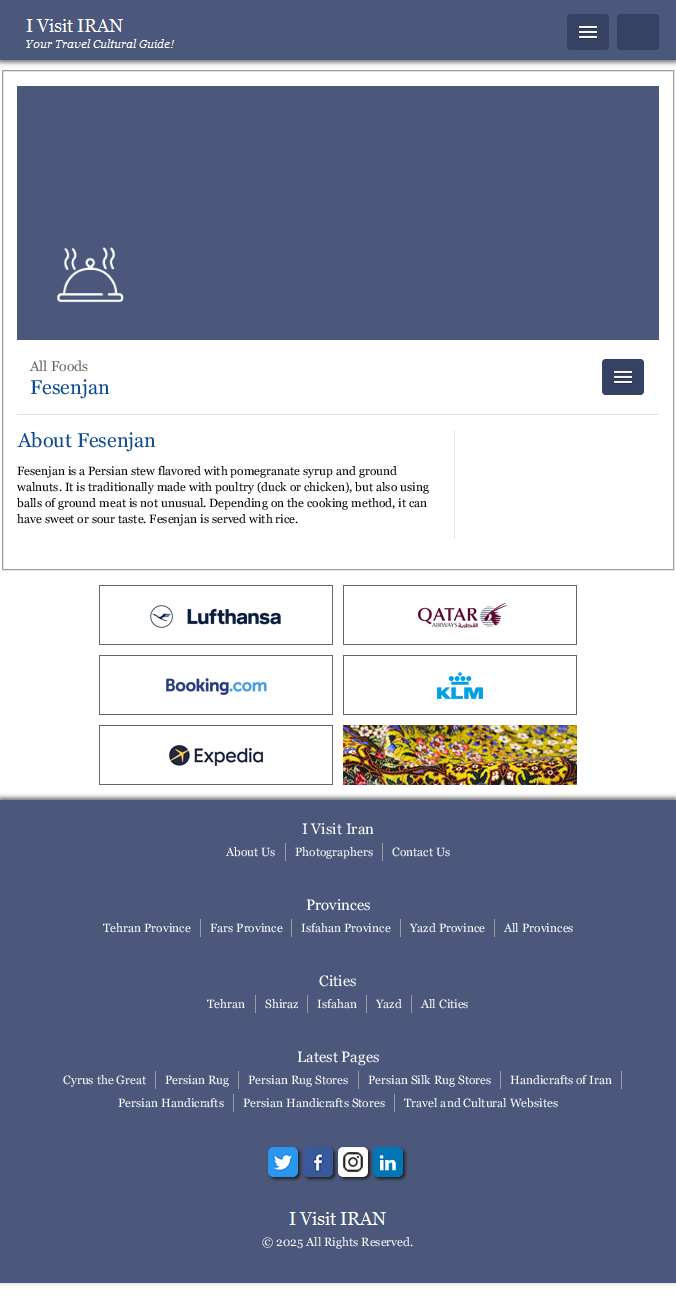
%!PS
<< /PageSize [676 1308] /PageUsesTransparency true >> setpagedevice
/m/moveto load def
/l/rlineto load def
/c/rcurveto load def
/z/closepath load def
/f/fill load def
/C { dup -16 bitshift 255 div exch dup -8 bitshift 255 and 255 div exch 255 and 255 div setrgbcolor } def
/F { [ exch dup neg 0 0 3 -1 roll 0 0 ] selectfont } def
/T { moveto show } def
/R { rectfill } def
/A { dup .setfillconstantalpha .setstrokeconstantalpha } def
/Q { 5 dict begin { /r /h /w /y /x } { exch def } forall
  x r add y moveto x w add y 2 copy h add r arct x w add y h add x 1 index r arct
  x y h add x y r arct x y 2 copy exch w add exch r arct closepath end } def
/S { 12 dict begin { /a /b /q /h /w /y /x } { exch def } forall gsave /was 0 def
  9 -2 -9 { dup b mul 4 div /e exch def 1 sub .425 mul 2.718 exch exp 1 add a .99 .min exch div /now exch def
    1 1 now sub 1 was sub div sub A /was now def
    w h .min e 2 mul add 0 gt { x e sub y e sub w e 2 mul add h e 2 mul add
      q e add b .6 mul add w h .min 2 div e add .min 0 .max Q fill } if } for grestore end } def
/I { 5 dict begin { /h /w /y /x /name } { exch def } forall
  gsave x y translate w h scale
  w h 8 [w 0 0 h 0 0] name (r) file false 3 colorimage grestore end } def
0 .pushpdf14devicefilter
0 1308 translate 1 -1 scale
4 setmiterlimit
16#FFFFFF C
0 0 676 1308 R
16#666666 C
0 2 676 60 0 2.5 1 S
16#4B587B C
0 0 676 60 R
(1.rgb) 26 19 149 29 I
16#364263 C
567 14 42 36 4 Q f
16#29324A C
579 27.5 m -1 2 3.5 1.5 3.5 1.5 c 11 0 l 0 0 4.5 .5 3.5 -1.5 c -1 1 -7.5 .5 -9 .5 c -1.5 0 -8 .5 -9 -.5 c z f
16#F5F5F5 C
579 26 18 2 1 Q f
16#29324A C
579 32.5 m -1 2 3.5 1.5 3.5 1.5 c 11 0 l 0 0 4.5 .5 3.5 -1.5 c -1 1 -7.5 .5 -9 .5 c -1.5 0 -8 .5 -9 -.5 c z f
16#F5F5F5 C
579 31 18 2 1 Q f
16#29324A C
579 37.5 m -1 2 3.5 1.5 3.5 1.5 c 11 0 l 0 0 4.5 .5 3.5 -1.5 c -1 1 -7.5 .5 -9 .5 c -1.5 0 -8 .5 -9 -.5 c z f
16#F5F5F5 C
579 36 18 2 1 Q f
16#364263 C
617 14 42 36 4 Q f
16#9D9D9D C
2.5 70.5 671 499 rectstroke
(2.rgb) 17 86 642 254 I
/Georgia-Regular 14 F
16#686868 C
(All Foods) 30 371 T
16#364263 C
602 359 42 36 4 Q f
16#29324A C
614 372.5 m -1 2 3.5 1.5 3.5 1.5 c 11 0 l 0 0 4.5 .5 3.5 -1.5 c -1 1 -7.5 .5 -9 .5 c -1.5 0 -8 .5 -9 -.5 c z f
16#F5F5F5 C
614 371 18 2 1 Q f
16#29324A C
614 377.5 m -1 2 3.5 1.5 3.5 1.5 c 11 0 l 0 0 4.5 .5 3.5 -1.5 c -1 1 -7.5 .5 -9 .5 c -1.5 0 -8 .5 -9 -.5 c z f
16#F5F5F5 C
614 376 18 2 1 Q f
16#29324A C
614 382.5 m -1 2 3.5 1.5 3.5 1.5 c 11 0 l 0 0 4.5 .5 3.5 -1.5 c -1 1 -7.5 .5 -9 .5 c -1.5 0 -8 .5 -9 -.5 c z f
16#F5F5F5 C
614 381 18 2 1 Q f
/Georgia-Regular 20 F
16#104C93 C
(Fesenjan) 30 394 T
16#E1E1E1 C
17 414 642 1 R
454 430 1 109 R
16#104C93 C
(About Fesenjan) 18 447 T
/Georgia-Regular 12 F
16#000000 C
(Fesenjan is a Persian stew flavored with pomegranate syrup and ground) 17 475 T
(walnuts. It is traditionally made with poultry \(duck or chicken\), but also using) 17 491 T
(balls of ground meat is not unusual. Depending on the cooking method, it can) 17 507 T
(have sweet or sour taste. Fesenjan is served with rice.) 17 523 T
(3.rgb) 99 585 234 60 I
(4.rgb) 343 585 234 60 I
(5.rgb) 99 655 234 60 I
(6.rgb) 343 655 234 60 I
(7.rgb) 99 725 234 60 I
(8.rgb) 343 725 234 60 I
16#666666 C
0 798 676 483 0 2.5 1 S
16#4B587B C
0 800 676 483 R
/Georgia-Regular 15 F
16#FFFFFF C
(I Visit Iran) 302 834 T
16#9D9D9D C
285 843 1 18 R
/Georgia-Regular 12 F
16#FFFFFF C
(About Us) 226 856 T
16#9D9D9D C
382 843 1 18 R
16#FFFFFF C
(Photographers) 295 856 T
(Contact Us) 392 856 T
/Georgia-Regular 15 F
(Provinces) 306 910 T
16#9D9D9D C
200 919 1 18 R
/Georgia-Regular 12 F
16#FFFFFF C
(Tehran Province) 103 932 T
16#9D9D9D C
291 919 1 18 R
16#FFFFFF C
(Fars Province) 210 932 T
16#9D9D9D C
400 919 1 18 R
16#FFFFFF C
(Isfahan Province) 301 932 T
16#9D9D9D C
494 919 1 18 R
16#FFFFFF C
(Yazd Province) 410 932 T
(All Provinces) 504 932 T
/Georgia-Regular 15 F
(Cities) 319 986 T
16#9D9D9D C
255 995 1 18 R
/Georgia-Regular 12 F
16#FFFFFF C
(Tehran) 207 1008 T
16#9D9D9D C
307 995 1 18 R
16#FFFFFF C
(Shiraz) 265 1008 T
16#9D9D9D C
366 995 1 18 R
16#FFFFFF C
(Isfahan) 317 1008 T
16#9D9D9D C
411 995 1 18 R
16#FFFFFF C
(Yazd) 376 1008 T
(All Cities) 421 1008 T
/Georgia-Regular 15 F
(Latest Pages) 297 1062 T
16#9D9D9D C
155 1071 1 18 R
/Georgia-Regular 12 F
16#FFFFFF C
(Cyrus the Great) 63 1084 T
16#9D9D9D C
238 1071 1 18 R
16#FFFFFF C
(Persian Rug) 165 1084 T
16#9D9D9D C
358 1071 1 18 R
16#FFFFFF C
(Persian Rug Stores) 248 1084 T
16#9D9D9D C
500 1071 1 18 R
16#FFFFFF C
(Persian Silk Rug Stores) 368 1084 T
16#9D9D9D C
621 1071 1 18 R
16#FFFFFF C
(Handicrafts of Iran) 510 1084 T
16#9D9D9D C
233 1094 1 18 R
16#FFFFFF C
(Persian Handicrafts) 118 1107 T
16#9D9D9D C
394 1094 1 18 R
16#FFFFFF C
(Persian Handicrafts Stores) 243 1107 T
(Travel and Cultural Websites) 404 1107 T
16#202020 C
270 1149 30 30 5 1.5 1 S
305 1149 30 30 5 1.5 1 S
340 1149 30 30 5 1.5 1 S
375 1149 30 30 5 1.5 1 S
(9.rgb) 268 1147 30 30 I
(10.rgb) 303 1147 30 30 I
(11.rgb) 338 1147 30 30 I
(12.rgb) 373 1147 30 30 I
(13.rgb) 289 1212 98 13 I
16#FFFFFF C
(© 2025 All Rights Reserved.) 262 1246 T
.poppdf14devicefilter showpage
